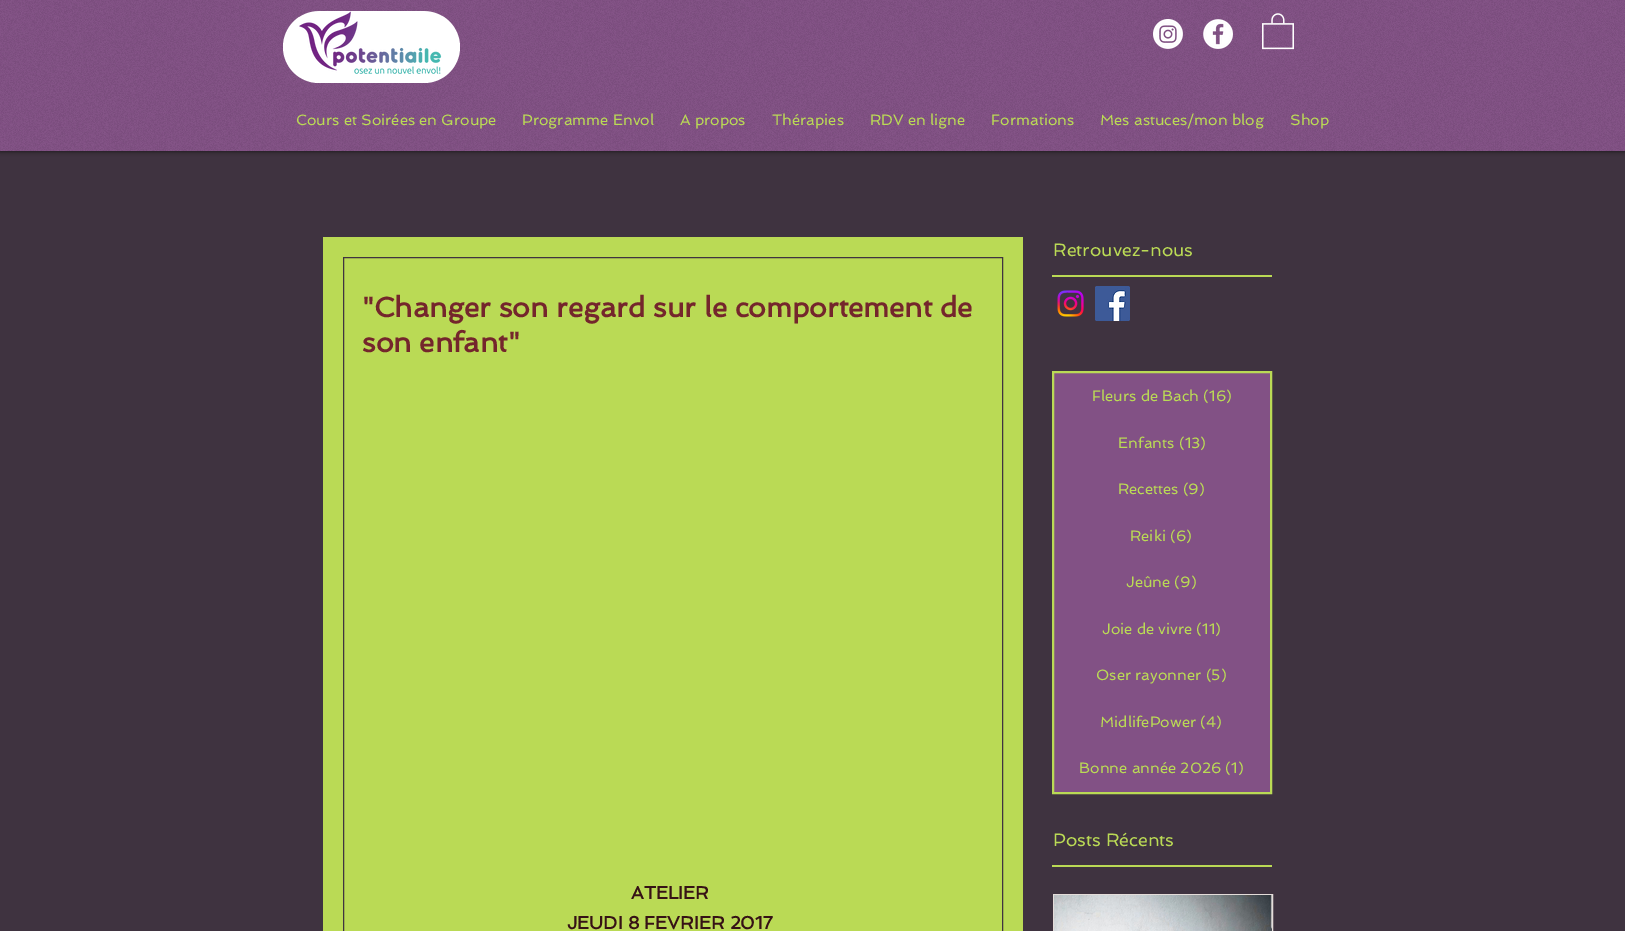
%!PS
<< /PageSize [1625 931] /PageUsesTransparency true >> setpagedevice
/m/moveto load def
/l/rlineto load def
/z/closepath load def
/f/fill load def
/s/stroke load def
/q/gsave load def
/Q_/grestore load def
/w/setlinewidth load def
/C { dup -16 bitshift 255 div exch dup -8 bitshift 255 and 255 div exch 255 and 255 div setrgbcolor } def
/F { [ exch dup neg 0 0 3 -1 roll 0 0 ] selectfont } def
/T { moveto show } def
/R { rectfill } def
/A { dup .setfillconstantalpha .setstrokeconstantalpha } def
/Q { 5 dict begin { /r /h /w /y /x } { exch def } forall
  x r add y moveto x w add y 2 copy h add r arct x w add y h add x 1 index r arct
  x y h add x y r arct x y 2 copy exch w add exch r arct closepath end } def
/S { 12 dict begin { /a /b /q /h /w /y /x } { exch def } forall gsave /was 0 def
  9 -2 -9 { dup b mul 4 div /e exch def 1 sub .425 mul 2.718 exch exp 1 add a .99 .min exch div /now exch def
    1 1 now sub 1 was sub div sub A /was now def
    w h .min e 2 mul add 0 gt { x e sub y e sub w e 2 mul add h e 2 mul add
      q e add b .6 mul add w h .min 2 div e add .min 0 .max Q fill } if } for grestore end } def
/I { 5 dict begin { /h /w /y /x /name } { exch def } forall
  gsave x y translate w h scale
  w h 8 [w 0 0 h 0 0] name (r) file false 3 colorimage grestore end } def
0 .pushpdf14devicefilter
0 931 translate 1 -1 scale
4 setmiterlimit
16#3F3340 C
0 0 1625 931 R
16#000000 C
0 0 1625 151 0 2.5 .7 S
16#825185 C
0 0 1625 151 R
(1.rgb) 0 0 1625 151 I
16#FFFFFF C
283 11 177 72 36 Q f
(2.rgb) 299 11 143 63 I
(3.rgb) 1153 19 30 30 I
(4.rgb) 1203 19 30 30 I
(5.rgb) 1262 13 32 37 I
/Spinnaker-Regular 15 F
16#BADA55 C
(Cours et Soirées en Groupe) 296 125 T
(Programme Envol) 522 125 T
(A propos) 680 125 T
(Thérapies) 772 125 T
(RDV en ligne) 870 125 T
(Formations) 991 125 T
(Mes astuces/mon blog) 1100 125 T
(Shop) 1290 125 T
/Spinnaker-Regular 18 F
(Retrouvez-nous) 1053 256 T
1052 275 220 2 R
323 237 700 694 R
16#3F3340 C
343.5 257.5 659 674 rectstroke
/Spinnaker-Bold 28 F
16#74262C C
("Changer son regard sur le comportement de) 362 317 T
(son enfant") 362 352 T
/Spinnaker-Bold 18 F
16#361215 C
(ATELIER) 631 899 T
(JEUDI 8 FEVRIER 2017) 567 929 T
(6.rgb) 1057 290 27 27 I
(7.rgb) 1095 286 35 35 I
16#825185 C
1053 372 m 218 0 l 0 421 l -218 0 l z q f Q_
16#BADA55 C
2 w
s
/Spinnaker-Regular 15 F
(Fleurs de Bach \(16\)) 1092 401 T
(Enfants \(13\)) 1118 448 T
(Recettes \(9\)) 1118 494 T
(Reiki \(6\)) 1130 541 T
(Jeûne \(9\)) 1126 587 T
(Joie de vivre \(11\)) 1102 634 T
(Oser rayonner \(5\)) 1096 680 T
(MidlifePower \(4\)) 1100 727 T
(Bonne année 2026 \(1\)) 1079 773 T
/Spinnaker-Regular 18 F
(Posts Récents) 1053 846 T
1052 865 220 2 R
16#E4DCD9 C
1 w
1053.5 894.5 219 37 rectstroke
(8.rgb) 1054 895 218 36 I
.poppdf14devicefilter showpage
